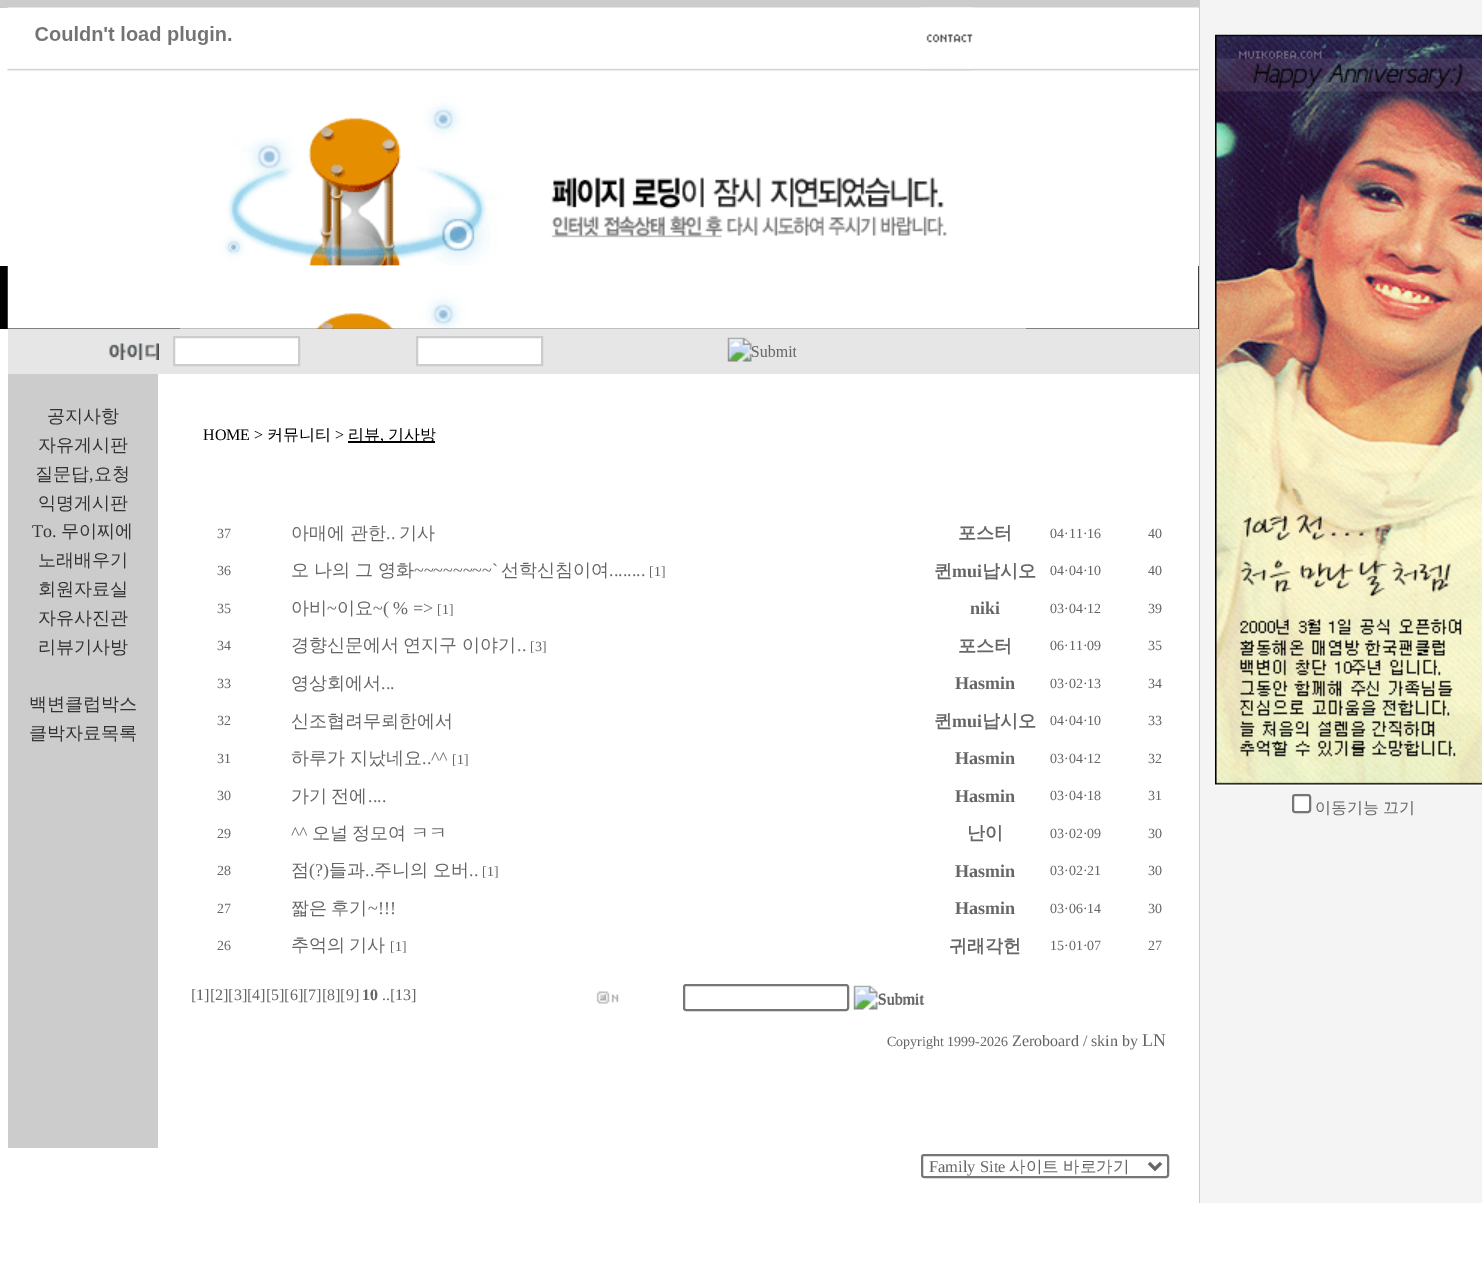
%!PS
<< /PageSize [1482 1265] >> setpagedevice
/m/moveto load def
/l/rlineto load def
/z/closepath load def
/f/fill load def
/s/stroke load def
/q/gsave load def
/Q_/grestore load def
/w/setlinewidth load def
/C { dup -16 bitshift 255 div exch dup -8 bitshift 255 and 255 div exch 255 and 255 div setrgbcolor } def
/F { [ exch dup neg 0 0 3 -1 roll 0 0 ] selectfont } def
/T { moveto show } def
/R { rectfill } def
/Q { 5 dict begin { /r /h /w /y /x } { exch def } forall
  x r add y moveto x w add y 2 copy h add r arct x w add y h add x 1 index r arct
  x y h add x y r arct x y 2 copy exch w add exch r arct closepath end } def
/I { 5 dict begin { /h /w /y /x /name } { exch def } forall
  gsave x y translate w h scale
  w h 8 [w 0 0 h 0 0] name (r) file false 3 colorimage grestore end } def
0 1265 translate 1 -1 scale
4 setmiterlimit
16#FFFFFF C
0 0 1482 1265 R
16#CCCCCC C
0 0 1200 8 R
(1.rgb) 7 7 1192 64 I
(2.rgb) 35 26 197 19 I
(3.rgb) 921 7 53 64 I
1199 8 1 1195 R
(4.rgb) 8 70 1190 196 I
16#000000 C
0 266 1199 63 R
(5.rgb) 7 265 1192 64 I
16#E6E6E6 C
8 329 1191 45 R
(6.rgb) 109 343 50 17 I
16#FFFFFF C
174 337 m 125 0 l 0 28 l -125 0 l z q f Q_
16#CCCCCC C
2 w
s
16#FFFFFF C
417 337 m 125 0 l 0 28 l -125 0 l z q f Q_
16#CCCCCC C
s
(7.rgb) 727 337 70 25 I
8 374 150 774 R
/WenQuanYiZenHei-Medium 18 F
16#333333 C
(공지사항) 47 422 T
(자유게시판) 38 451 T
(질문답) 35 480 T
/LiberationSerif-Regular 18 F
(,) 89 480 T
/WenQuanYiZenHei-Medium 18 F
(요청) 94 480 T
(익명게시판) 38 509 T
/LiberationSerif-Regular 18 F
(To.) 32 537 T
/WenQuanYiZenHei-Medium 18 F
(무이찌에) 61 537 T
(노래배우기) 38 566 T
(회원자료실) 38 595 T
(자유사진관) 38 624 T
(리뷰기사방) 38 653 T
(백변클럽박스) 29 710 T
(클박자료목록) 29 739 T
/LiberationSerif-Regular 16 F
16#000000 C
(HOME >) 203 440 T
/WenQuanYiZenHei-Medium 16 F
(커뮤니티) 267 440 T
/LiberationSerif-Regular 16 F
(>) 335 440 T
348 441 87 2 R
/WenQuanYiZenHei-Medium 16 F
(리뷰) 348 440 T
(기사방) 388 440 T
/LiberationSerif-Regular 16 F
(,) 380 440 T
/LiberationSerif-Regular 14 F
16#666666 C
(37) 217 538 T
/WenQuanYiZenHei-Medium 18 F
(아매에 관한) 291 539 T
/LiberationSerif-Regular 18 F
(..) 386 539 T
/WenQuanYiZenHei-Medium 18 F
(기사) 399 539 T
/WenQuanYiZenHei-Bold 18 F
(포스터) 958 539 T
/LiberationSerif-Regular 14 F
(04·11·16) 1050 538 T
(40) 1148 538 T
(36) 217 575 T
/WenQuanYiZenHei-Medium 18 F
291 576 m -.5 0 32 (오 나의 그 영화) widthshow
/LiberationSerif-Regular 18 F
(~~~~~~~~`) 414 576 T
/WenQuanYiZenHei-Medium 18 F
(선학신침이여) 501 576 T
/LiberationSerif-Regular 18 F
(........) 609 576 T
/LiberationSerif-Regular 14 F
([1]) 649 576 T
/WenQuanYiZenHei-Bold 18 F
(퀸) 934 577 T
/LiberationSerif-Bold 18 F
(mui) 952 577 T
/WenQuanYiZenHei-Bold 18 F
(납시오) 982 577 T
/LiberationSerif-Regular 14 F
(04·04·10) 1050 575 T
(40) 1148 575 T
(35) 217 613 T
/WenQuanYiZenHei-Medium 18 F
(아비) 291 614 T
/LiberationSerif-Regular 18 F
(~) 327 614 T
/WenQuanYiZenHei-Medium 18 F
(이요) 337 614 T
/LiberationSerif-Regular 18 F
(~\( % =>) 373 614 T
/LiberationSerif-Regular 14 F
([1]) 437 614 T
/LiberationSerif-Bold 18 F
(niki) 970 614 T
/LiberationSerif-Regular 14 F
(03·04·12) 1050 613 T
(39) 1148 613 T
(34) 217 650 T
/WenQuanYiZenHei-Medium 18 F
291 651 m -1 0 32 (경향신문에서 연지구 이야기) widthshow
/LiberationSerif-Regular 18 F
(..) 517 651 T
/LiberationSerif-Regular 14 F
([3]) 530 651 T
/WenQuanYiZenHei-Bold 18 F
(포스터) 958 652 T
/LiberationSerif-Regular 14 F
(06·11·09) 1050 650 T
(35) 1148 650 T
(33) 217 688 T
/WenQuanYiZenHei-Medium 18 F
(영상회에서) 291 689 T
/LiberationSerif-Regular 18 F
(...) 381 689 T
/LiberationSerif-Bold 18 F
(Hasmin) 955 689 T
/LiberationSerif-Regular 14 F
(03·02·13) 1050 688 T
(34) 1148 688 T
(32) 217 725 T
/WenQuanYiZenHei-Medium 18 F
(신조협려무뢰한에서) 291 727 T
/WenQuanYiZenHei-Bold 18 F
(퀸) 934 727 T
/LiberationSerif-Bold 18 F
(mui) 952 727 T
/WenQuanYiZenHei-Bold 18 F
(납시오) 982 727 T
/LiberationSerif-Regular 14 F
(04·04·10) 1050 725 T
(33) 1148 725 T
(31) 217 763 T
/WenQuanYiZenHei-Medium 18 F
(하루가 지났네요) 291 764 T
/LiberationSerif-Regular 18 F
(..^^) 422 764 T
/LiberationSerif-Regular 14 F
([1]) 452 764 T
/LiberationSerif-Bold 18 F
(Hasmin) 955 764 T
/LiberationSerif-Regular 14 F
(03·04·12) 1050 763 T
(32) 1148 763 T
(30) 217 800 T
/WenQuanYiZenHei-Medium 18 F
291 802 m -1 0 32 (가기 전에) widthshow
/LiberationSerif-Regular 18 F
(....) 368 802 T
/LiberationSerif-Bold 18 F
(Hasmin) 955 802 T
/LiberationSerif-Regular 14 F
(03·04·18) 1050 800 T
(31) 1148 800 T
(29) 217 838 T
/LiberationSerif-Regular 18 F
(^^) 291 839 T
/WenQuanYiZenHei-Medium 18 F
312 839 m -1 0 32 (오널 정모여 ㅋㅋ) widthshow
/WenQuanYiZenHei-Bold 18 F
(난이) 967 839 T
/LiberationSerif-Regular 14 F
(03·02·09) 1050 838 T
(30) 1148 838 T
(28) 217 875 T
/WenQuanYiZenHei-Medium 18 F
(점) 291 876 T
/LiberationSerif-Regular 18 F
(\(?\)) 309 876 T
/WenQuanYiZenHei-Medium 18 F
(들과) 329 876 T
/LiberationSerif-Regular 18 F
(..) 365 876 T
/WenQuanYiZenHei-Medium 18 F
(주니의 오버) 374 876 T
/LiberationSerif-Regular 18 F
(..) 469 876 T
/LiberationSerif-Regular 14 F
([1]) 482 876 T
/LiberationSerif-Bold 18 F
(Hasmin) 955 877 T
/LiberationSerif-Regular 14 F
(03·02·21) 1050 875 T
(30) 1148 875 T
(27) 217 913 T
/WenQuanYiZenHei-Medium 18 F
291 914 m -1 0 32 (짧은 후기) widthshow
/LiberationSerif-Regular 18 F
(~!!!) 368 914 T
/LiberationSerif-Bold 18 F
(Hasmin) 955 914 T
/LiberationSerif-Regular 14 F
(03·06·14) 1050 913 T
(30) 1148 913 T
(26) 217 950 T
/WenQuanYiZenHei-Medium 18 F
291 951 m -1 0 32 (추억의 기사) widthshow
/LiberationSerif-Regular 14 F
([1]) 390 951 T
/WenQuanYiZenHei-Bold 18 F
(귀래각헌) 949 952 T
/LiberationSerif-Regular 14 F
(15·01·07) 1050 950 T
(27) 1148 950 T
/LiberationSerif-Regular 16 F
([1][2][3][4][5][6][7][8][9]) 191 1000 T
/LiberationSerif-Bold 16 F
(10) 362 1000 T
/LiberationSerif-Regular 16 F
(..[13]) 382 1000 T
(8.rgb) 596 991 23 13 I
16#767676 C
684 985 164 25 2 Q s
(9.rgb) 853 985 71 25 I
16#666666 C
(Submit) 878 1004 T
/LiberationSerif-Regular 14 F
(Copyright 1999-2026) 887 1046 T
/LiberationSerif-Regular 16 F
(Zeroboard / skin by) 1012 1046 T
/LiberationSerif-Regular 18 F
(LN) 1142 1046 T
16#767676 C
922 1155 246 22 2 Q s
16#666666 C
3 w
1149 1163 m 6 6 l 6 -6 l s
/LiberationSerif-Regular 16.5 F
(Family Site) 929 1172 T
/WenQuanYiZenHei-Medium 16.5 F
(사이트) 1009 1172 T
(바로가기) 1063 1172 T
16#F5F4F4 C
1200 0 282 1203 R
(10.rgb) 1215 34 267 752 I
16#FFFFFF C
1293 795 17 17 2 Q q f Q_
16#767676 C
2 w
s
/WenQuanYiZenHei-Medium 16 F
16#666666 C
1315 813 m -1 0 32 (이동기능 끄기) widthshow
showpage
